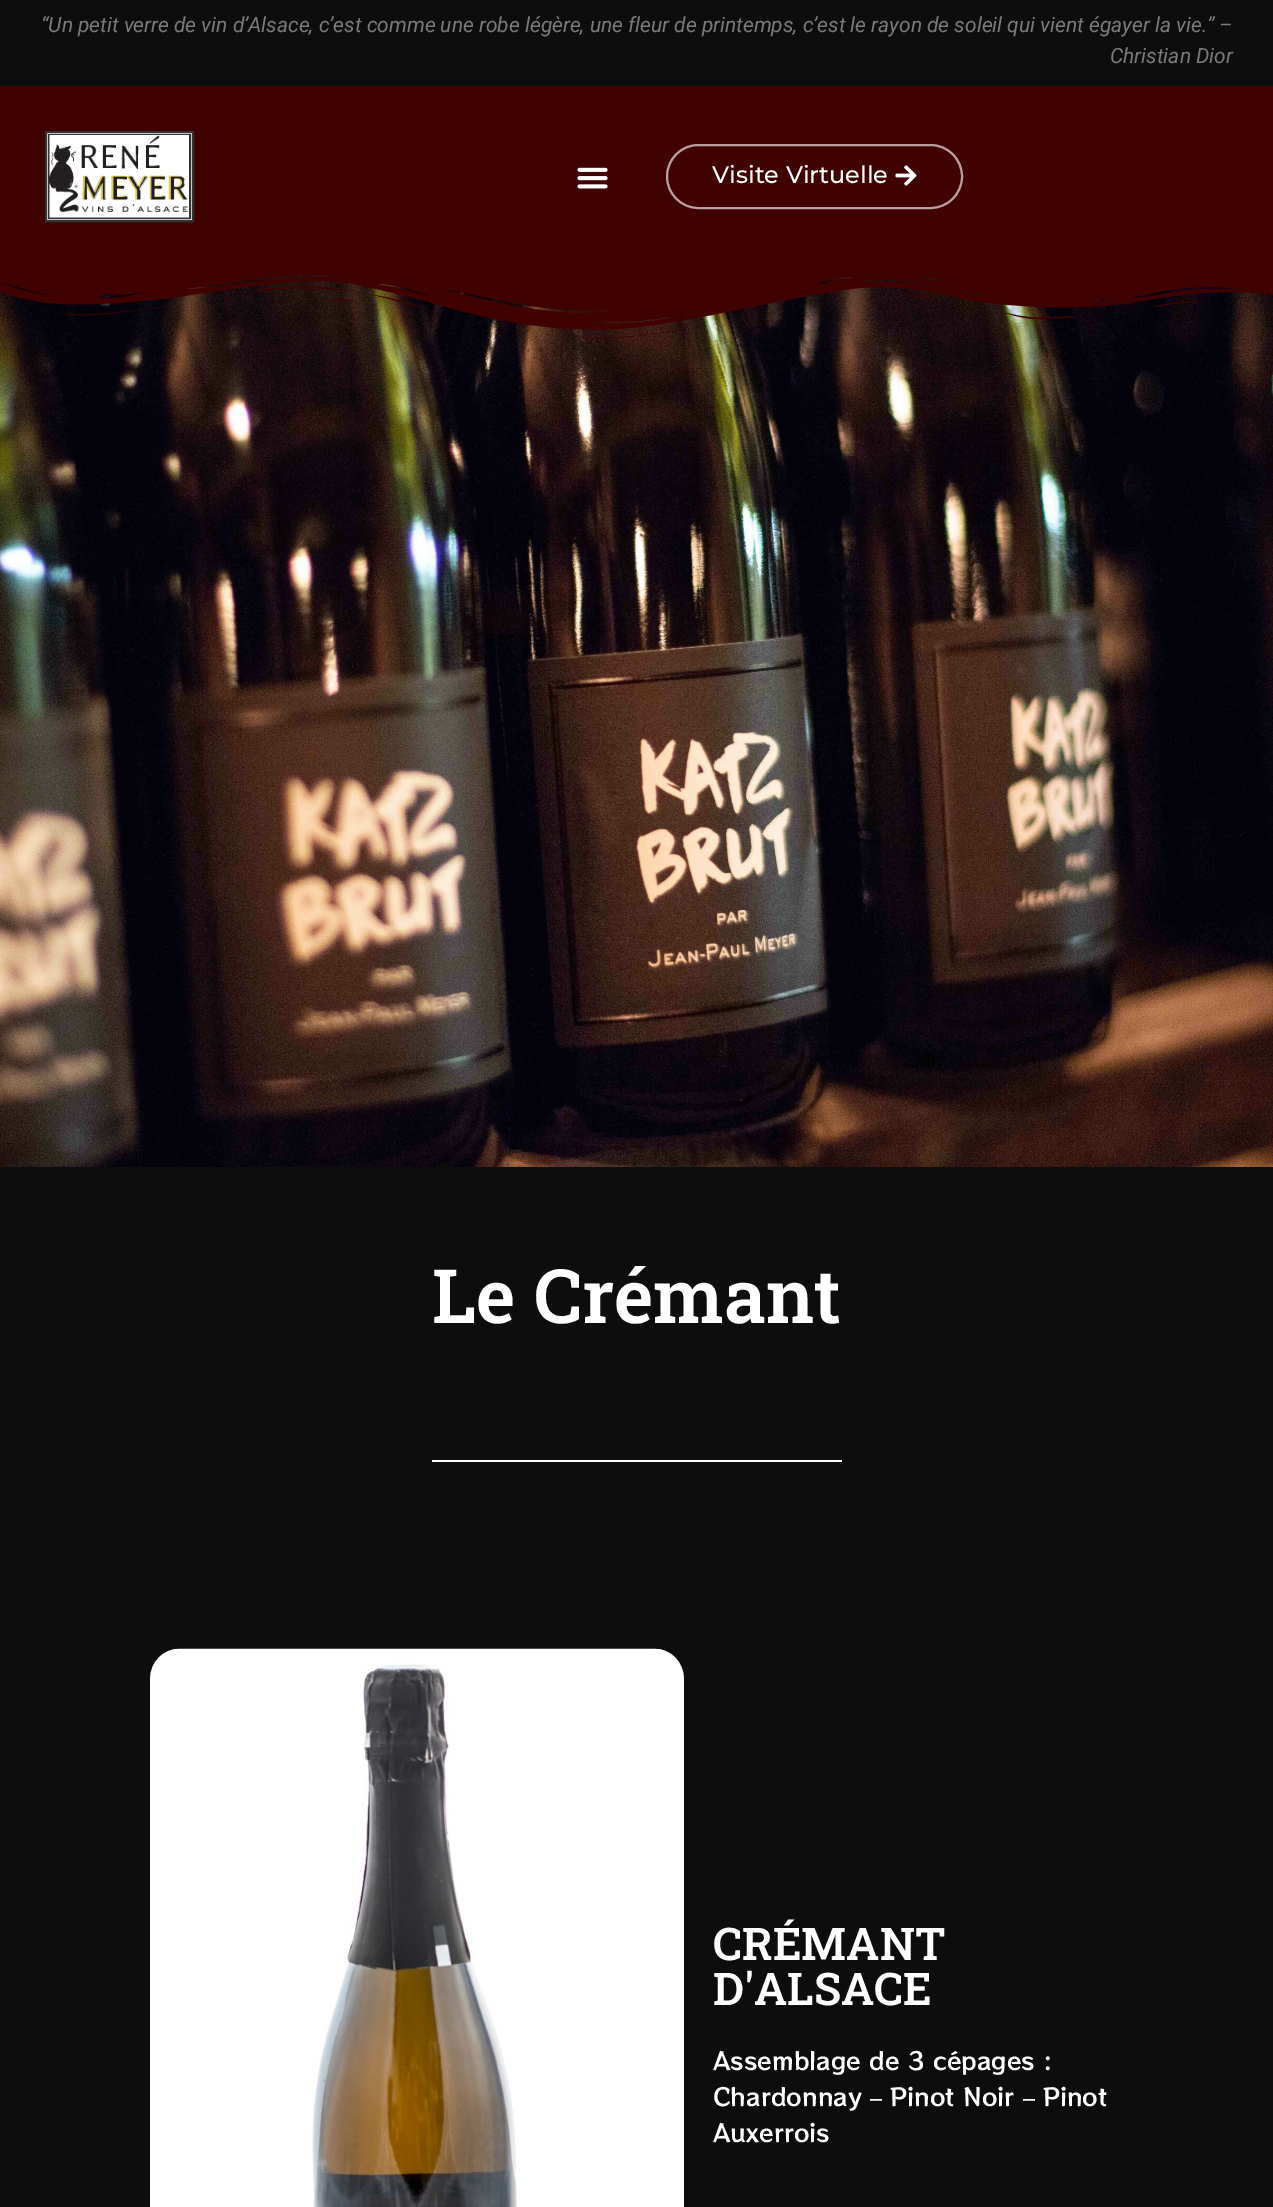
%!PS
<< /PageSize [1273 2207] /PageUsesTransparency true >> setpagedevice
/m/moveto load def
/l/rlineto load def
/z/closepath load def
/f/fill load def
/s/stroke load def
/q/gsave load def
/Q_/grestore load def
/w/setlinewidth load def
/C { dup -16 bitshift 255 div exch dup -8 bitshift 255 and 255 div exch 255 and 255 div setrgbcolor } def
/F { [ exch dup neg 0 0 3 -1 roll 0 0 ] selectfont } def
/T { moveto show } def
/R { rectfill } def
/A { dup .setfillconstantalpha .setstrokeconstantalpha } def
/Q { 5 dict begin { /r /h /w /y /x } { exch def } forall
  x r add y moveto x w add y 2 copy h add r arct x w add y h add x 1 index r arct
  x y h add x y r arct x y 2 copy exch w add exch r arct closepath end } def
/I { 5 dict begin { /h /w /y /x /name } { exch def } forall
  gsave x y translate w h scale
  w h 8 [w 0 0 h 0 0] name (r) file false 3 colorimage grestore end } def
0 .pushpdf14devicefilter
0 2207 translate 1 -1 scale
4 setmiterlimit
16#0D0D0D C
0 0 1273 2207 R
/Roboto-Italic 21 F
16#7A7A7A C
(“Un petit verre de vin d’Alsace, c’est comme une robe légère, une fleur de printemps, c’est le rayon de soleil qui vient égayer la vie.” –) 41 32 T
(Christian Dior) 1110 63 T
16#400101 C
0 86 1273 181 R
16#FFFFFF C
46 132 m 147 0 l 0 89 l -147 0 l z q f Q_
16#333333 C
2 w
s
49 135 141 83 rectstroke
(1.rgb) 49 135 140 83 I
(2.rgb) 577 167 31 22 I
0.63 A
16#FFFFFF C
667 145 295 63 31.5 Q s
/Montserrat-Medium 24 F
1 A
(Visite Virtuelle) 712 183 T
(3.rgb) 895 165 22 21 I
(4.rgb) 0 275 1273 892 I
(5.rgb) 0 267 1273 72 I
/RobotoSlab-SemiBold 75 F
(Le Crémant) 432 1323 T
432 1460 410 2 R
(6.rgb) 150 1648 534 559 I
/RobotoSlab-SemiBold 45 F
(CRÉMANT) 713 1960 T
(D'ALSACE) 713 2005 T
/RocknRollOne-Regular 24 F
(Assemblage de 3 cépages :) 713 2070 T
(Chardonnay – Pinot Noir – Pinot) 713 2106 T
(Auxerrois) 713 2142 T
.poppdf14devicefilter showpage
